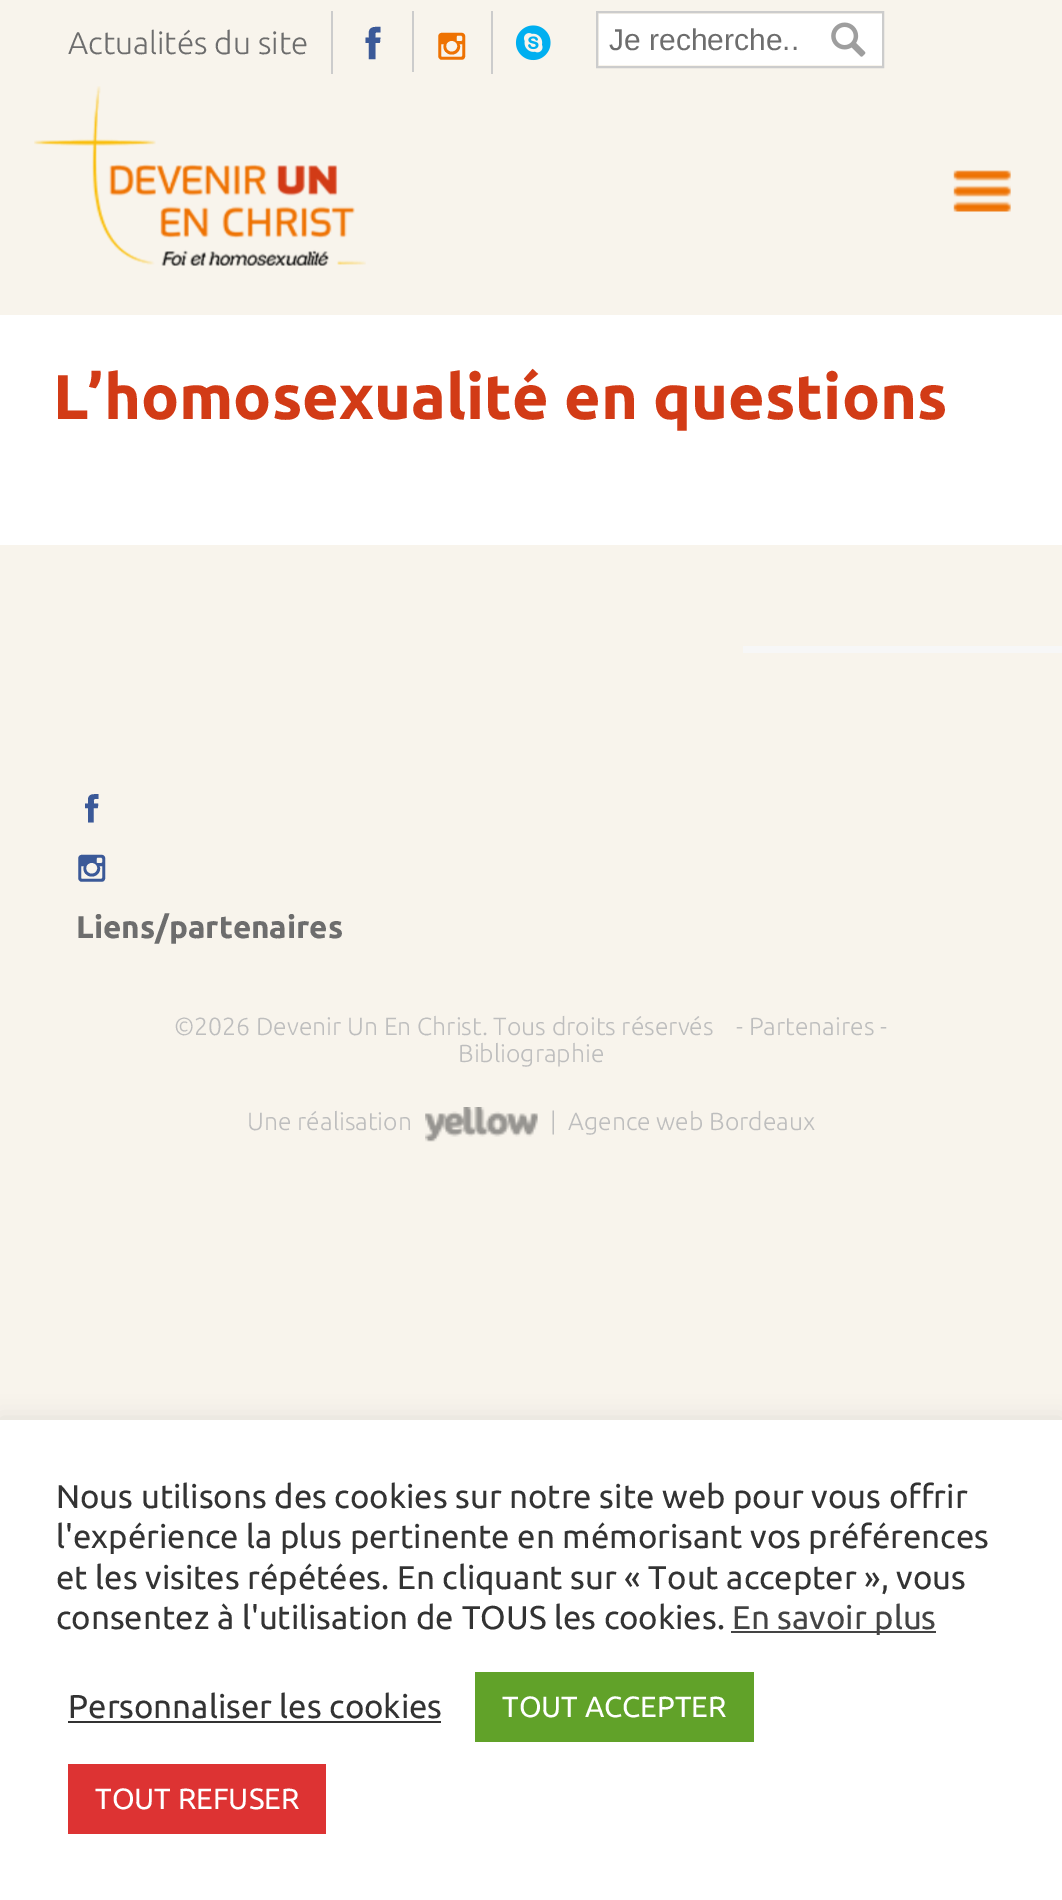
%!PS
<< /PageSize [1062 1900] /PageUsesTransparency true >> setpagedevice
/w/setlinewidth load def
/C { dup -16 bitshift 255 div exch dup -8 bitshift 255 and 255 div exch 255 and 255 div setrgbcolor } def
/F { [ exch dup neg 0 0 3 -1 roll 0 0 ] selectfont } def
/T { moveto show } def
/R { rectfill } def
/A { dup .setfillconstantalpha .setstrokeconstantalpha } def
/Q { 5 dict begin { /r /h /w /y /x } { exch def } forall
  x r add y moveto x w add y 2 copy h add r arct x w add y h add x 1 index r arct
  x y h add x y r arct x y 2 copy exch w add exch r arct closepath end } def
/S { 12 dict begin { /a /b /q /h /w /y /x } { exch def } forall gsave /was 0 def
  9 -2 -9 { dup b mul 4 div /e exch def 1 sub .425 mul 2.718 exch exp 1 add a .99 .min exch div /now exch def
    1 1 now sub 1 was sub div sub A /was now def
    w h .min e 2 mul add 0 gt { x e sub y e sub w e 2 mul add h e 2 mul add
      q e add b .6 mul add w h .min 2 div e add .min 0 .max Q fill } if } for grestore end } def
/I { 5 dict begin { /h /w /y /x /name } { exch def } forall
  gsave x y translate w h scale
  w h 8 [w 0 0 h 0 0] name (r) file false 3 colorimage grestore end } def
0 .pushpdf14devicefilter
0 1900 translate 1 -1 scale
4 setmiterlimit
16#F8F4EC C
0 0 1062 1900 R
16#CCCCCC C
331 11 2 63 R
/Ubuntu-Light 31.5 F
16#6D6D6D C
(Actualités du site) 68 54 T
16#CCCCCC C
412 11 2 61 R
/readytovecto-Regular 36 F
16#3B5998 C
(4) 355 61 T
16#CCCCCC C
491 11 2 63 R
/readytovecto-Regular 31.5 F
16#EE7202 C
(-) 436 62 T
(1.rgb) 515 25 36 36 I
16#FFFFFF C
599 14 283 51 R
16#CCCCCC C
2 w
597 12 286 55 rectstroke
/LiberationSans-Regular 30 F
16#6D6D6D C
(Je recherche..) 609 50 T
(2.rgb) 831 22 35 35 I
(3.rgb) 34 86 332 180 I
(4.rgb) 953 170 58 42 I
16#FFFFFF C
0 315 1062 230 R
/Ubuntu-Bold 63 F
16#D23B16 C
(L’homosexualité en questions) 53 419 T
16#F7F7F7 C
743 646 319 7 R
/readytovecto-Regular 31.5 F
16#3B5998 C
(4) 76 824 T
(-) 76 884 T
/Ubuntu-Bold 31.5 F
16#6D6D6D C
(Liens/partenaires) 76 938 T
/Ubuntu-Light 24.75 F
16#BEBEBE C
(©2026 Devenir Un En Christ. Tous droits réservés    - Partenaires -) 174 1035 T
(Bibliographie) 458 1062 T
(Une réalisation) 247 1130 T
(5.rgb) 425 1107 113 35 I
(|) 550 1130 T
(Agence web Bordeaux) 568 1130 T
16#ACABAB C
0 1418 1062 481 0 11 .3 S
16#FFFFFF C
0 1420 1062 480 R
/Ubuntu-Regular 33 F
16#333333 C
(Nous utilisons des cookies sur notre site web pour vous offrir) 56 1508 T
(l'expérience la plus pertinente en mémorisant vos préférences) 56 1548 T
(et les visites répétées. En cliquant sur « Tout accepter », vous) 56 1589 T
(consentez à l'utilisation de TOUS les cookies.) 56 1629 T
16#444444 C
731 1631 205 2 R
(En savoir plus) 732 1629 T
16#333333 C
(Personnaliser les cookies) 68 1718 T
68 1721 373 2 R
16#61A229 C
475 1672 279 70 R
/Ubuntu-Regular 29.25 F
16#FFFFFF C
(TOUT ACCEPTER) 502 1717 T
16#DD3333 C
68 1764 258 70 R
16#FFFFFF C
(TOUT REFUSER) 95 1809 T
.poppdf14devicefilter showpage
